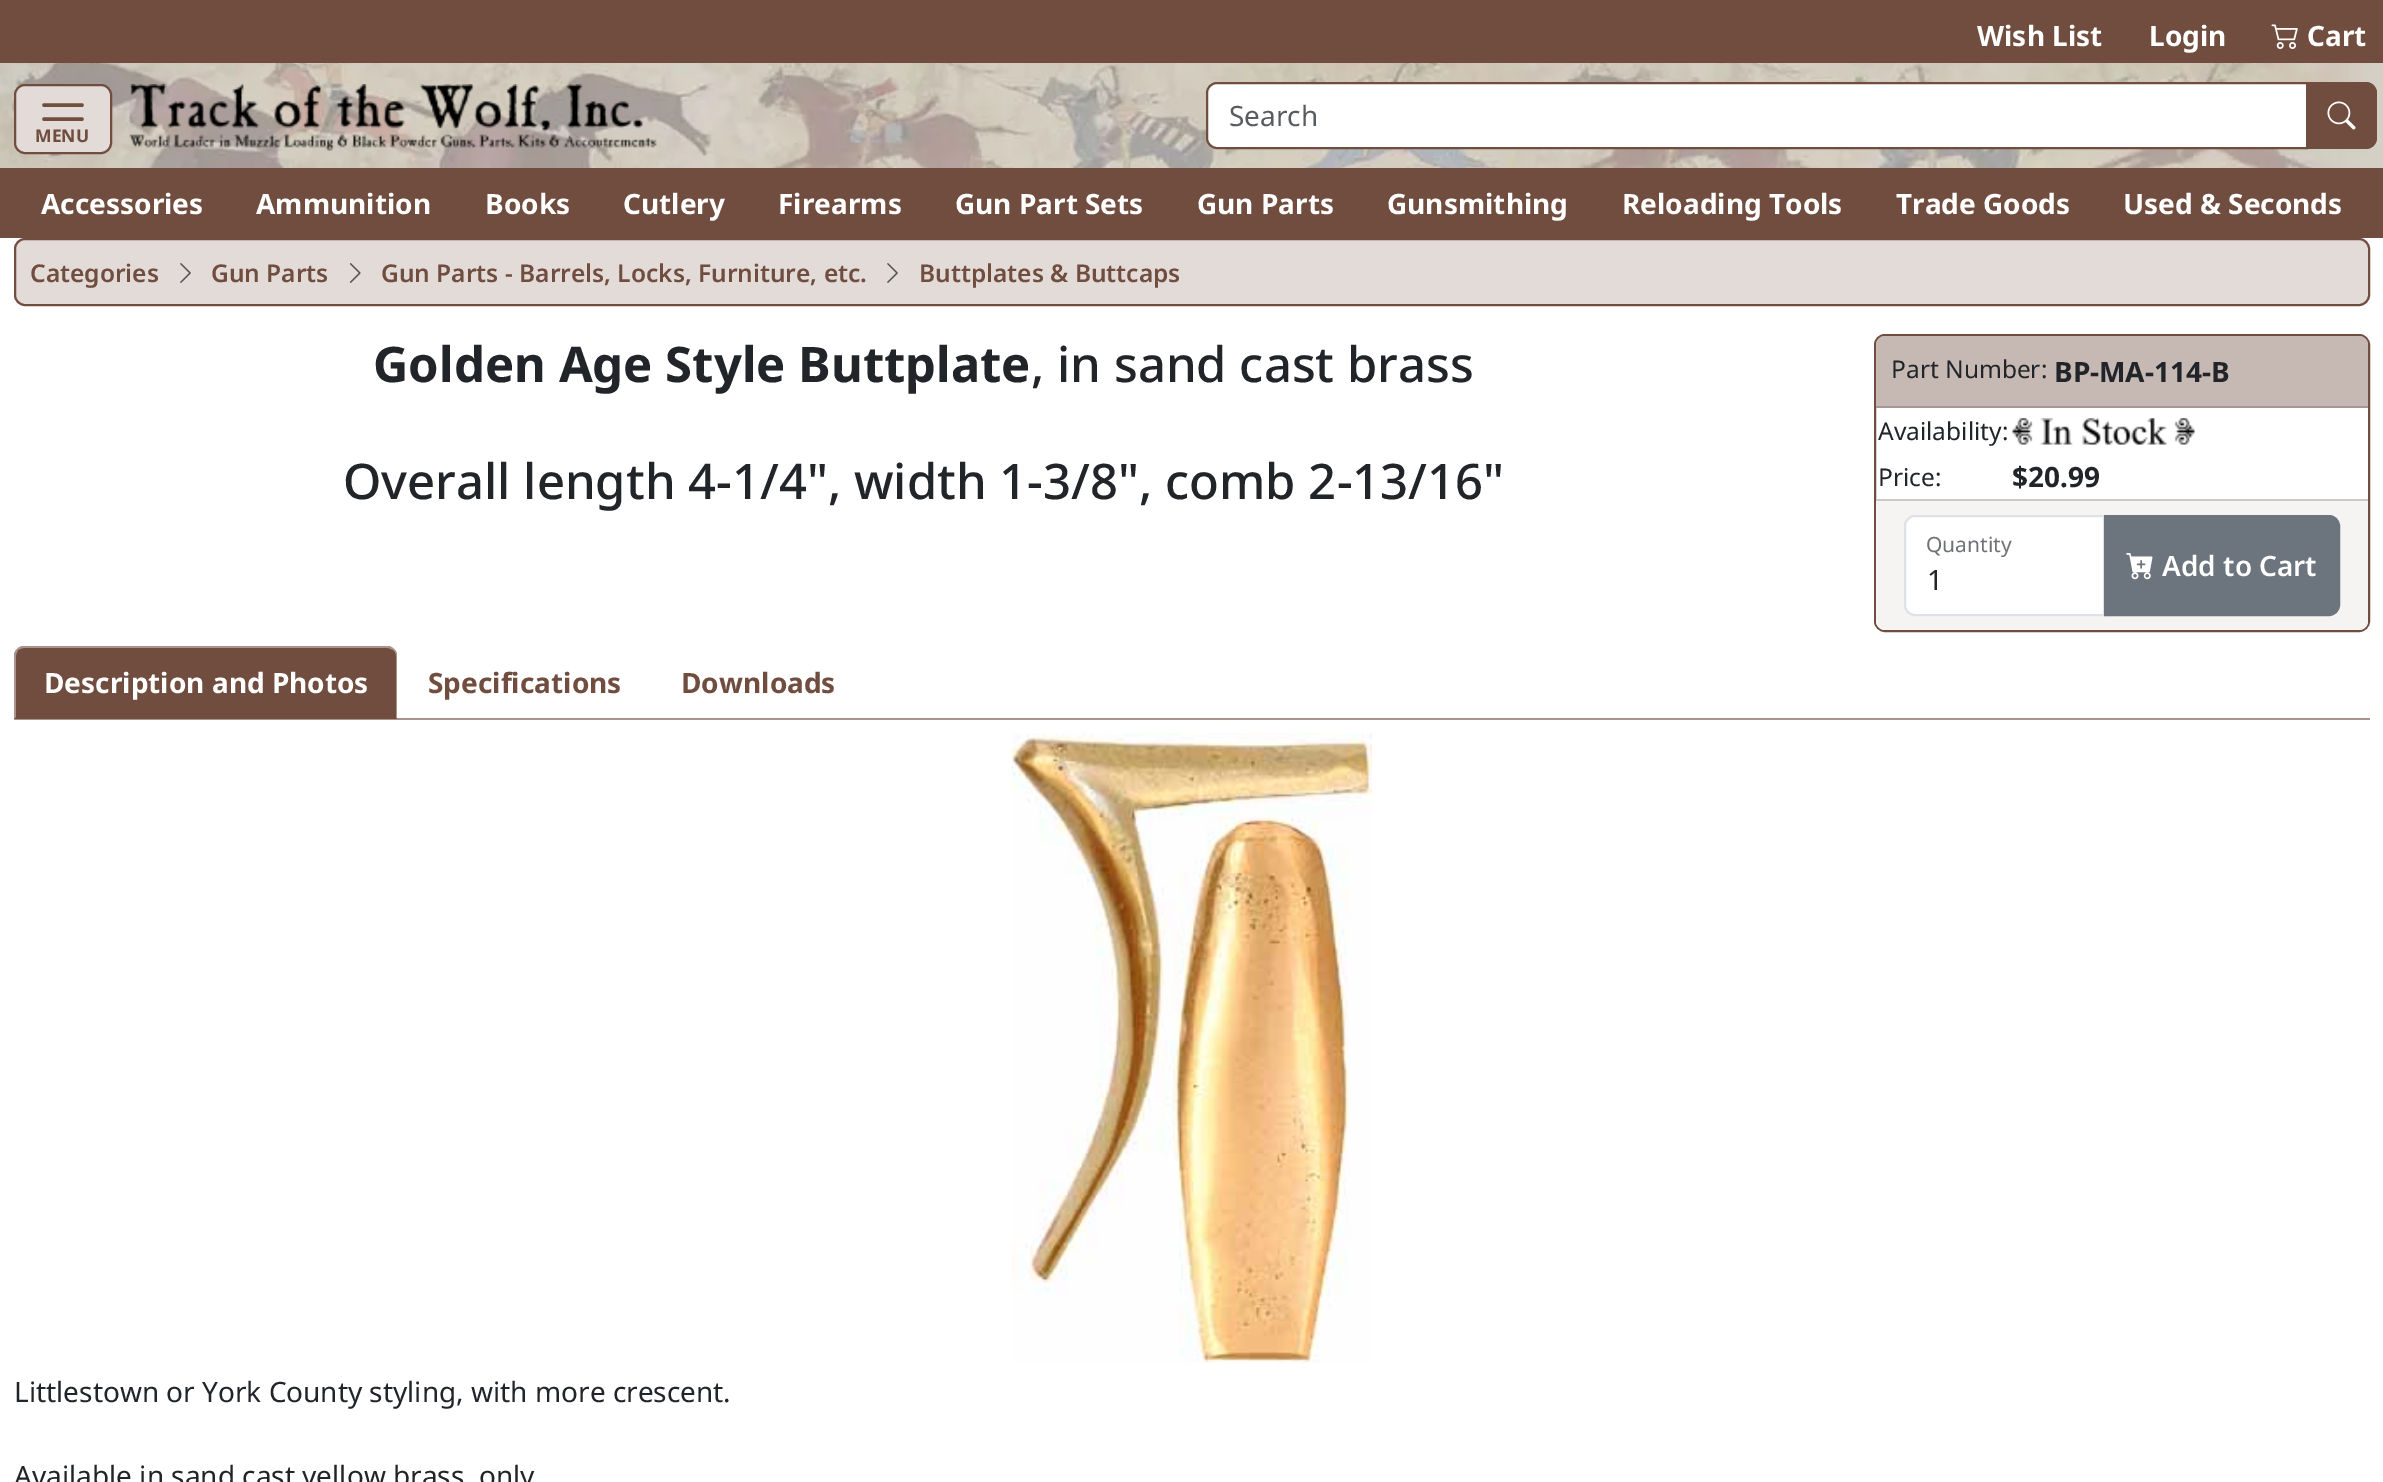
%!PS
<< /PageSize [2383 1482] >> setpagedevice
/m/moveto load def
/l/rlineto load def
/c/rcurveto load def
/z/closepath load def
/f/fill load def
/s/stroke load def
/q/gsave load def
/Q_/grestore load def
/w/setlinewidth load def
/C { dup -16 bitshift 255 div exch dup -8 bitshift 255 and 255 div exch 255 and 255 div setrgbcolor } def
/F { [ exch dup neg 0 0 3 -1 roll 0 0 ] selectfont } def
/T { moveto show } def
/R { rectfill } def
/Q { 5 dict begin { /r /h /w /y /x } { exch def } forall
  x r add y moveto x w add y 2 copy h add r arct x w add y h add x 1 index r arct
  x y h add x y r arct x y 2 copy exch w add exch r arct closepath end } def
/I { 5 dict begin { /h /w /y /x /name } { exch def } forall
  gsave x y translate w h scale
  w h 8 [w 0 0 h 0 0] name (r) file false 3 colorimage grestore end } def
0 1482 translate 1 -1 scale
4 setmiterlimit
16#FFFFFF C
0 0 2383 1482 R
16#704D3E C
0 0 2383 63 R
/NotoSans-Bold 28 F
16#FFFFFF C
(Wish List) 1977 46 T
(Login) 2149 46 T
(1.rgb) 2271 24 27 25 I
(Cart) 2307 46 T
(2.rgb) 0 63 2383 105 I
1217 83 m 1090 0 l 0 65 l -1090 0 l -5.5 0 -10 -4.5 -10 -10 c 0 -45 l 0 -5.5 4.5 -10 10 -10 c z q f Q_
16#704D3E C
2 w
s
/NotoSans-Regular 28 F
16#595C5F C
(Search) 1229 126 T
16#704D3E C
2307 82 m 59 0 l 6 0 11 5 11 11 c 0 45 l 0 6 -5 11 -11 11 c -59 0 l z f
(3.rgb) 2327 101 29 29 I
16#E2DBD8 C
15 85 96 68 10 Q q f Q_
16#704D3E C
s
3.5 w
1 setlinecap
44 105 m 38 0 l 44 119 m 38 0 l 44 133 m 38 0 l s
16#E2DBD8 C
35 126 54 18 9 Q f
/NotoSans-Bold 17.5 F
16#704D3E C
(MENU) 35 142 T
(4.rgb) 129 84 528 67 I
0 168 2383 70 R
/NotoSans-Bold 28 F
16#FFFFFF C
(Accessories) 41 214 T
(Ammunition) 256 214 T
(Books) 485 214 T
(Cutlery) 623 214 T
(Firearms) 778 214 T
(Gun Part Sets) 955 214 T
(Gun Parts) 1197 214 T
(Gunsmithing) 1387 214 T
(Reloading Tools) 1622 214 T
(Trade Goods) 1896 214 T
(Used & Seconds) 2123 214 T
16#E2DBD8 C
15 239 2354 66 10 Q q f Q_
16#704D3E C
2 w
0 setlinecap
s
/NotoSans-SemiBold 24.5 F
(Categories) 30 282 T
(5.rgb) 180 263 11 20 I
(Gun Parts) 211 282 T
(6.rgb) 349 263 12 20 I
(Gun Parts - Barrels, Locks, Furniture, etc.) 381 282 T
(5.rgb) 887 263 11 20 I
(Buttplates & Buttcaps) 919 282 T
/NotoSans-Bold 49 F
16#212529 C
(Golden Age Style Buttplate) 373 382 T
/NotoSans-Medium 49 F
(, in sand cast brass) 1031 382 T
(Overall length 4-1/4", width 1-3/8", comb 2-13/16") 343 499 T
16#704D3E C
1875 335 494 296 10 Q s
16#C6B8B2 C
1885 336 m 474 0 l 5 0 9 4 9 9 c 0 63 l -492 0 l 0 -63 l 0 -5 4 -9 9 -9 c z f
16#A39893 C
1876 406 492 2 R
/NotoSans-Regular 24.5 F
16#212529 C
(Part Number:) 1891 378 T
/NotoSans-Bold 28 F
(BP-MA-114-B) 2054 382 T
/NotoSans-Regular 24.5 F
(Availability:) 1878 440 T
(7.rgb) 2012 418 183 27 I
(Price:) 1878 486 T
/NotoSans-Bold 28 F
($20.99) 2012 487 T
16#F6F4F3 C
1876 499 m 492 0 l 0 122 l 0 5 -4 9 -9 9 c -474 0 l -5 0 -9 -4 -9 -9 c z f
16#CBC9C8 C
1876 499 492 2 R
16#FFFFFF C
1915 516 m 189 0 l 0 99 l -189 0 l -5.5 0 -10 -4.5 -10 -10 c 0 -79 l 0 -5.5 4.5 -10 10 -10 c z q f Q_
16#DEE2E6 C
s
/NotoSans-Regular 21 F
16#6F7174 C
(Quantity) 1926 552 T
16#6C757D C
2105 516 m 224 0 l 5.5 0 10 4.5 10 10 c 0 79 l 0 5.5 -4.5 10 -10 10 c -224 0 l z q f Q_
s
(8.rgb) 2126 553 27 27 I
/NotoSans-SemiBold 28 F
16#FFFFFF C
(Add to Cart) 2162 576 T
/NotoSans-Regular 28 F
16#212529 C
(1) 1927 590 T
16#A9948B C
14 718 2356 2 R
16#704D3E C
25 646 m 361 0 l 6 0 11 5 11 11 c 0 62 l -383 0 l 0 -62 l 0 -6 5 -11 11 -11 c z f
16#A9948B C
24 646 m -3 0 -5 1 -7 3 c 1 1 l 2 -1 4 -2 6 -2 c 363 0 l 2 0 4 1 6 2 c 1 -1 l -2 -2 -4 -3 -7 -3 c z f
397 719 m 0 -63 l 0 -3 -1 -6 -3 -7 c -1 1 l 2 1 3 3 3 6 c 0 62 l z f
16#704D3E C
397 719 m -1 -1 l -380 0 l 0 -1 l -2 2 l z f
16#A9948B C
14 656 m 0 63 l 2 -2 l 0 -61 l 0 -2 1 -4 2 -6 c -1 -1 l -2 2 -3 4 -3 7 c z f
/NotoSans-Bold 28 F
16#FFFFFF C
(Description and Photos) 44 693 T
16#704D3E C
(Specifications) 428 693 T
(Downloads) 681 693 T
(9.rgb) 1011 733 361 631 I
/NotoSans-Regular 28 F
16#212529 C
(Littlestown or York County styling, with more crescent.) 14 1402 T
(Available in sand cast yellow brass, only) 14 1486 T
showpage
